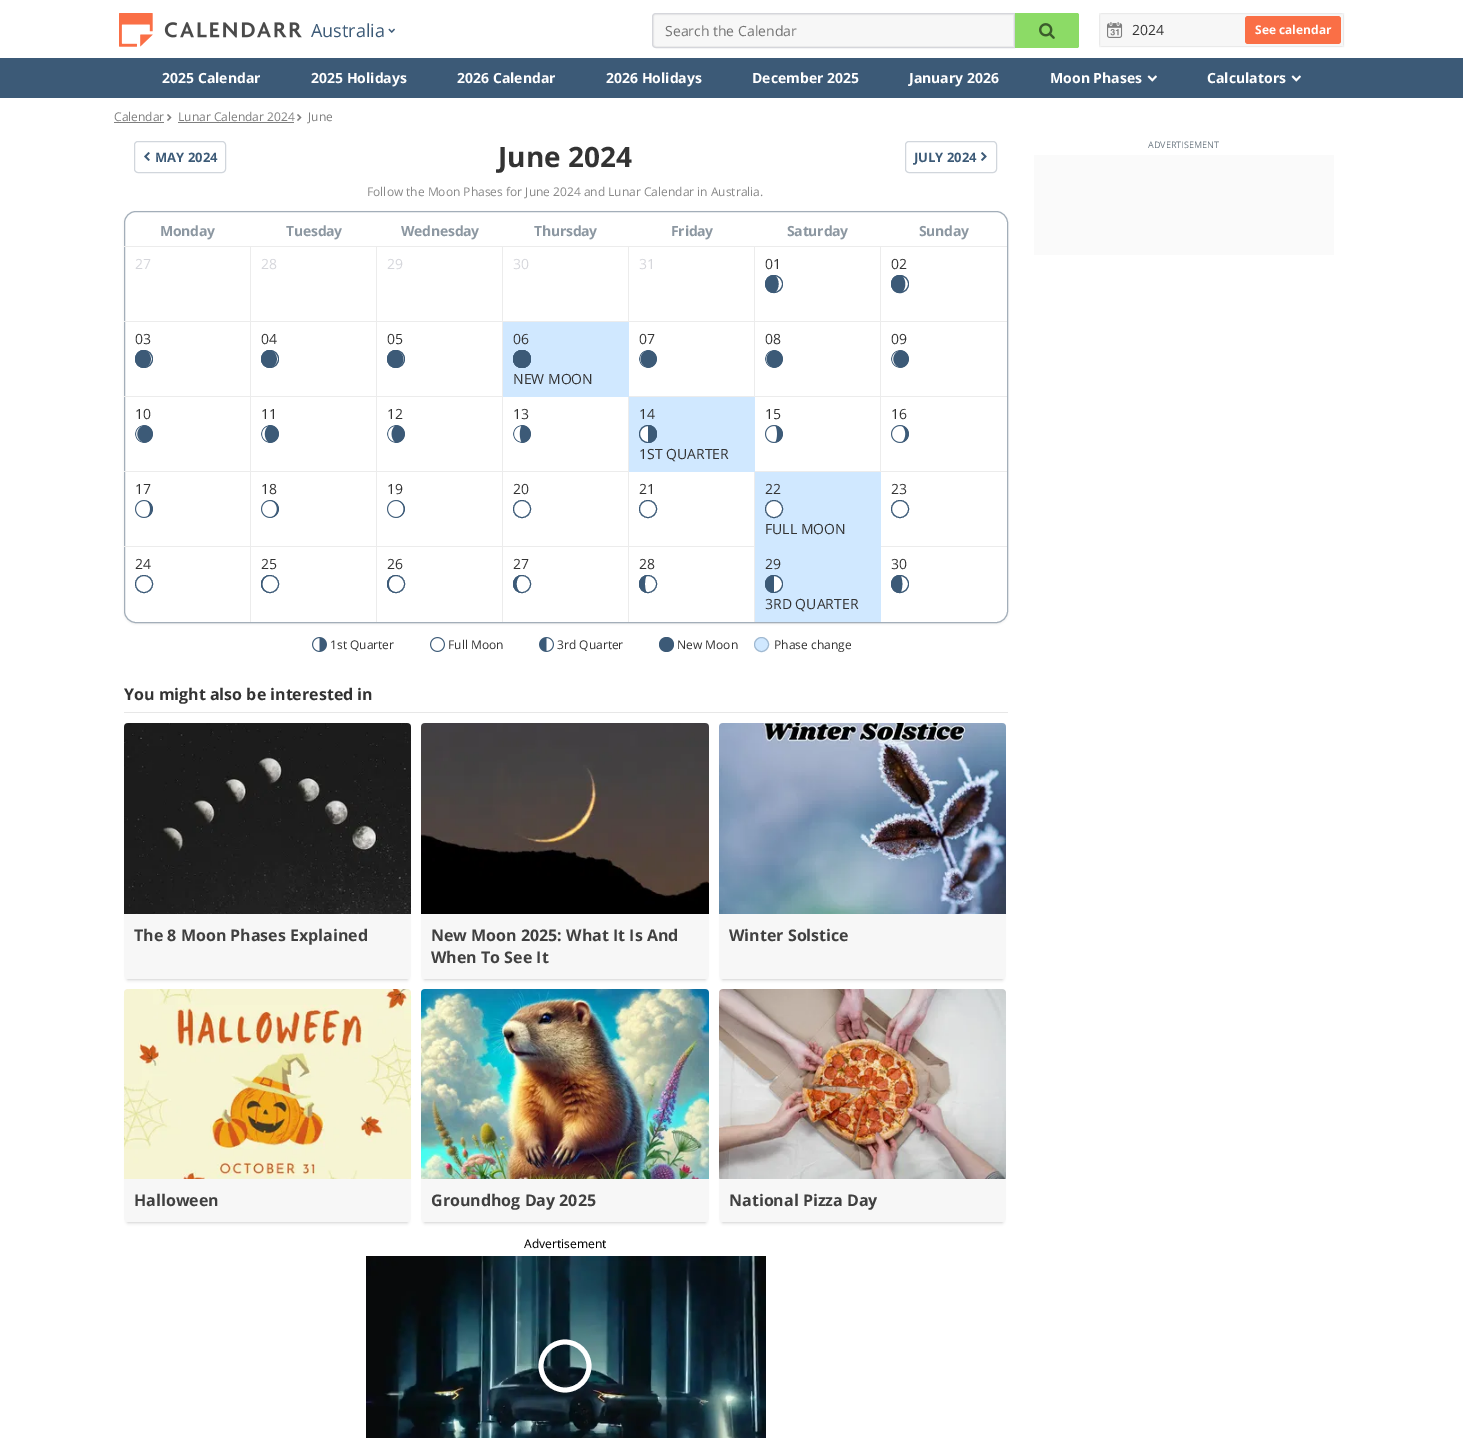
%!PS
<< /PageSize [1463 1438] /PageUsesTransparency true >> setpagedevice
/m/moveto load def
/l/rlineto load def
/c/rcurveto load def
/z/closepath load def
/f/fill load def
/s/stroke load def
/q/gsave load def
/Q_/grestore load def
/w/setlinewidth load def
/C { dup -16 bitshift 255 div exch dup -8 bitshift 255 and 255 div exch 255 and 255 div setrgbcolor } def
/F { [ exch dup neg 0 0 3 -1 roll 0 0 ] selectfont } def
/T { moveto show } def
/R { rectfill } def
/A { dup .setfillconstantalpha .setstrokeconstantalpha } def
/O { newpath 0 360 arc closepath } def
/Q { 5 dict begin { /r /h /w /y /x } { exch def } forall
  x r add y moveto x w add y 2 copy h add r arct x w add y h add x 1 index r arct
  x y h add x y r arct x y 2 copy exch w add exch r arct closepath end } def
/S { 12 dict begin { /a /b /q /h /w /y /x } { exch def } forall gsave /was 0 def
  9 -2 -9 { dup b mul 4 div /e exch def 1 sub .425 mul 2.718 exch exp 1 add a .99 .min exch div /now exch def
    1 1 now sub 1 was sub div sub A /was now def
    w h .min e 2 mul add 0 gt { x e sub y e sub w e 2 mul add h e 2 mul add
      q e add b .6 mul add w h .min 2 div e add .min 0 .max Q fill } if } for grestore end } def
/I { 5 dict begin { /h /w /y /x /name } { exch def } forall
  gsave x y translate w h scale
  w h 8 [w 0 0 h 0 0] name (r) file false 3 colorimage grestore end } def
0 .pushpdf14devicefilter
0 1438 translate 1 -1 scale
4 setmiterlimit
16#FFFFFF C
0 0 1463 1438 R
(1.rgb) 119 13 183 34 I
/OpenSans-Regular 18 F
16#3C5A77 C
(Australia) 311 37 T
(2.rgb) 388 28 7 5 I
16#F7F7F7 C
656 13 m 359 0 l 0 35 l -359 0 l -2 0 -4 -2 -4 -4 c 0 -27 l 0 -2 2 -4 4 -4 c z f
16#EBEBEB C
656 14.5 m 357.5 0 l 0 32 l -357.5 0 l -1.5 0 -2.5 -1 -2.5 -2.5 c 0 -27 l 0 -1.5 1 -2.5 2.5 -2.5 c z s
16#D5D6DB C
656 13.5 m 358.5 0 l 0 34 l -358.5 0 l -2 0 -3.5 -1.5 -3.5 -3.5 c 0 -27 l 0 -2 1.5 -3.5 3.5 -3.5 c z s
/OpenSans-Regular 14 F
16#757575 C
(Search the Calendar) 665 36 T
16#8CDB66 C
1015 13 m 62 0 l 1 0 2 1 2 2 c 0 31 l 0 1 -1 2 -2 2 c -62 0 l z f
(3.rgb) 1039 23 16 16 I
16#F7F7F7 C
1099 13 245 34 4 Q f
0.05 A
16#000000 C
1099.5 13.5 244 33 rectstroke
1 A
(4.rgb) 1107 22 16 16 I
16#333333 C
(2024) 1132 35 T
16#FA6F46 C
1245 16 96 28 3 Q f
/OpenSans-Bold 12 F
16#FFFFFF C
(See calendar) 1255 34 T
16#3C5A77 C
0 58 1463 40 R
/OpenSans-Bold 14 F
16#FFFFFF C
(2025 Calendar) 162 83 T
(2025 Holidays) 311 83 T
(2026 Calendar) 457 83 T
(2026 Holidays) 606 83 T
(December 2025) 752 83 T
(January 2026) 909 83 T
(Moon Phases) 1050 83 T
(5.rgb) 1147 75 10 7 I
(Calculators) 1207 83 T
(5.rgb) 1291 75 10 7 I
/OpenSans-Regular 12 F
16#7F7F7F C
(Calendar) 114 121 T
114 122 50 1 R
(6.rgb) 167 114 5 7 I
(Lunar Calendar 2024) 178 121 T
178 122 116 1 R
(6.rgb) 297 114 5 7 I
(June) 308 121 T
16#FAFAFA C
1034 155 300 100 R
/OpenSans-Regular 9 F
16#6C7882 C
(ADVERTISEMENT) 1148 148 T
16#D1D6DC C
134.5 141.5 91 31 3.5 Q s
(7.rgb) 144 152 6 9 I
/OpenSans-Bold 13 F
16#3C5A77 C
(MAY 2024) 155 162 T
/OpenSans-Bold 28 F
16#333333 C
(June 2024) 498 167 T
16#D1D6DC C
905.5 141.5 91 31 3.5 Q s
/OpenSans-Bold 13 F
16#3C5A77 C
(JULY 2024) 914 162 T
(8.rgb) 981 152 6 9 I
/OpenSans-Regular 12 F
16#888888 C
(Follow the Moon Phases for June 2024 and Lunar Calendar in Australia.) 367 196 T
q
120 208 m 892 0 l 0 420 l -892 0 l z 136 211 m 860 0 l 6.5 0 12 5.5 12 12 c 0 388 l 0 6.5 -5.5 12 -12 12 c -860 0 l -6.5 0 -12 -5.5 -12 -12 c 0 -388 l 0 -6.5 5.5 -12 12 -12 c z eoclip newpath
16#000000 C
124 212 884 412 12 1 .07 S
Q_
16#A3AEB9 C
124.5 211.5 883 411 11.5 Q s
16#ECECEC C
124 246 883 1 R
/OpenSans-Bold 14 F
16#8C97A1 C
160 236 m -.25 0 (Monday) ashow
286 236 m -.25 0 (Tuesday) ashow
401 236 m -.25 0 (Wednesday) ashow
534 236 m -.25 0 (Thursday) ashow
671 236 m -.25 0 (Friday) ashow
787 236 m -.25 0 (Saturday) ashow
919 236 m -.25 0 (Sunday) ashow
/OpenSans-Regular 14 F
16#D5D6DB C
(27) 135 269 T
16#ECECEC C
880 321 127 1 R
880 396 127 1 R
754 471 253 1 R
880 396 1 76 R
628 396 253 1 R
880 321 1 76 R
754 321 127 1 R
754 321 1 76 R
502 321 253 1 R
754 546 1 76 R
628 546 127 1 R
628 546 1 76 R
502 546 127 1 R
628 471 1 76 R
502 471 127 1 R
502 546 1 76 R
376 546 127 1 R
502 471 1 76 R
376 471 127 1 R
502 396 1 76 R
376 396 127 1 R
502 321 1 76 R
376 321 127 1 R
376 546 1 76 R
250 546 127 1 R
376 471 1 76 R
250 471 127 1 R
376 396 1 76 R
250 396 127 1 R
376 321 1 76 R
250 321 127 1 R
250 546 1 76 R
124 546 127 1 R
250 471 1 76 R
124 471 127 1 R
250 396 1 76 R
124 396 127 1 R
250 321 1 76 R
124 321 127 1 R
250 246 1 76 R
16#D5D6DB C
(28) 261 269 T
16#ECECEC C
376 246 1 76 R
16#D5D6DB C
(29) 387 269 T
16#ECECEC C
502 246 1 76 R
16#D5D6DB C
(30) 513 269 T
16#ECECEC C
628 246 1 76 R
16#D5D6DB C
(31) 639 269 T
16#ECECEC C
754 246 1 76 R
16#333333 C
(01) 765 269 T
q
765 275 18 18 9 Q clip newpath
16#3C5A77 C
1.1 w
774 284 8.5 O s
Q_
16#3C5A77 C
774 275 m .5 0 l 5.5 4.5 5.5 13.5 0 18 c -12 .5 -12.5 -18 -.5 -18 c z f
16#ECECEC C
880 246 1 76 R
16#333333 C
(02) 891 269 T
q
891 275 18 18 9 Q clip newpath
16#3C5A77 C
1.1 w
900 284 8.5 O s
Q_
16#3C5A77 C
900 275 m 1.5 0 l 5 5 5 13 0 18 c -12.5 2 -14.5 -18 -1.5 -18 c z f
16#333333 C
(03) 135 344 T
q
135 350 18 18 9 Q clip newpath
16#3C5A77 C
1.1 w
144 359 8.5 O s
Q_
16#3C5A77 C
143 350 m 8.5 1 11 13 3 17 c -3 1 l -3 -1 l -8 -4 -5.5 -16 3 -17 c z f
16#333333 C
(04) 261 344 T
q
261 350 18 18 9 Q clip newpath
16#3C5A77 C
1.1 w
270 359 8.5 O s
Q_
16#3C5A77 C
269 350 m 8.5 1 11 13 3 17 c -3 1 l -3 -1 l -8 -4 -5.5 -16 3 -17 c z f
16#333333 C
(05) 387 344 T
q
387 350 18 18 9 Q clip newpath
16#3C5A77 C
1.1 w
396 359 8.5 O s
Q_
16#3C5A77 C
395 350 m 9 1 11.5 13 3.5 17 c -3.5 1 l -3 -1 l -8 -4 -5.5 -16 3 -17 c z f
16#ECECEC C
628 396 1 76 R
16#D0E8FF C
503 322 126 75 R
16#333333 C
(06) 513 344 T
q
513 350 18 18 9 Q clip newpath
16#3C5A77 C
1.5 w
522 359 8.5 O s
Q_
16#3C5A77 C
522 359 9 O f
16#333333 C
(NEW MOON) 513 384 T
(07) 639 344 T
(9.rgb) 639 350 18 18 I
(08) 765 344 T
(9.rgb) 765 350 18 18 I
(09) 891 344 T
(10.rgb) 891 350 18 18 I
(10) 135 419 T
(10.rgb) 135 425 18 18 I
(11) 261 419 T
(11.rgb) 261 425 18 18 I
(12) 387 419 T
(12.rgb) 387 425 18 18 I
(13) 513 419 T
(13.rgb) 513 425 18 18 I
16#ECECEC C
754 471 1 76 R
16#D0E8FF C
629 397 126 75 R
16#333333 C
(14) 639 419 T
16#FFFFFF C
648 434 8.5 O f
q
639 425 18 18 9 Q clip newpath
16#3C5A77 C
1.1 w
648 434 8.5 O s
Q_
16#3C5A77 C
648 425 m 5 0 9 4 9 9 c 0 5 -4 9 -9 9 c z f
16#333333 C
(1ST QUARTER) 639 459 T
(15) 765 419 T
(14.rgb) 765 425 18 18 I
(16) 891 419 T
(15.rgb) 891 425 18 18 I
(17) 135 494 T
(16.rgb) 135 500 18 18 I
(18) 261 494 T
(17.rgb) 261 500 18 18 I
(19) 387 494 T
(18.rgb) 387 500 18 18 I
(20) 513 494 T
q
513 500 18 18 9 Q clip newpath
16#3C5A77 C
1.1 w
522 509 8.5 O s
Q_
16#FFFFFF C
522 509 9 O f
16#3C5A77 C
522 509 8.5 O s
16#333333 C
(21) 639 494 T
q
639 500 18 18 9 Q clip newpath
16#3C5A77 C
1.1 w
648 509 8.5 O s
Q_
16#FFFFFF C
648 509 9 O f
16#3C5A77 C
648 509 8.5 O s
16#ECECEC C
880 546 127 1 R
16#D0E8FF C
755 472 126 150 R
16#333333 C
(22) 765 494 T
q
765 500 18 18 9 Q clip newpath
16#3C5A77 C
1.1 w
774 509 8.5 O s
Q_
16#FFFFFF C
774 509 9 O f
16#3C5A77 C
774 509 8.5 O s
16#333333 C
(FULL MOON) 765 534 T
(23) 891 494 T
q
891 500 18 18 9 Q clip newpath
16#3C5A77 C
1.1 w
900 509 8.5 O s
Q_
16#FFFFFF C
900 509 9 O f
16#3C5A77 C
900 509 8.5 O s
16#333333 C
(24) 135 569 T
q
135 575 18 18 9 Q clip newpath
16#3C5A77 C
1.1 w
144 584 8.5 O s
Q_
16#FFFFFF C
144 584 9 O f
16#3C5A77 C
144 584 8.5 O s
16#333333 C
(25) 261 569 T
16#3C5A77 C
270 584 8.5 O f
q
261 575 18 18 9 Q clip newpath
1.1 w
270 584 8.5 O s
Q_
16#FFFFFF C
271 575 m 8.5 1 11 13 3 17 c -3 1 l -3.5 -1 l -8 -4 -5.5 -16 3.5 -17 c z f
16#3C5A77 C
270 584 8.5 O s
16#333333 C
(26) 387 569 T
16#3C5A77 C
396 584 8.5 O f
q
387 575 18 18 9 Q clip newpath
1.1 w
396 584 8.5 O s
Q_
16#FFFFFF C
397 575 m 8.5 1 11 13 3 17 c -3 1 l -3 -1 l -8 -4 -5.5 -16 3 -17 c z f
16#3C5A77 C
396 584 8.5 O s
16#333333 C
(27) 513 569 T
16#3C5A77 C
522 584 8.5 O f
q
513 575 18 18 9 Q clip newpath
1.1 w
522 584 8.5 O s
Q_
16#FFFFFF C
522 575 m 12.5 0 11.5 19.5 -1 18 c -5.5 -5 -5.5 -13 0 -18 c z f
16#3C5A77 C
522 584 8.5 O s
16#333333 C
(28) 639 569 T
16#3C5A77 C
648 584 8.5 O f
q
639 575 18 18 9 Q clip newpath
1.1 w
648 584 8.5 O s
Q_
16#FFFFFF C
648 575 m 12.5 0 11.5 19.5 -1 18 c -2.5 -5.5 -2.5 -12.5 0 -18 c z f
16#3C5A77 C
648 584 8.5 O s
16#333333 C
(29) 765 569 T
16#FFFFFF C
774 584 8.5 O f
q
765 575 18 18 9 Q clip newpath
16#3C5A77 C
1.1 w
774 584 8.5 O s
Q_
16#3C5A77 C
774 575 m 0 18 l -5 0 -9 -4 -9 -9 c 0 -5 4 -9 9 -9 c z f
16#333333 C
(3RD QUARTER) 765 609 T
(30) 891 569 T
q
891 575 18 18 9 Q clip newpath
16#3C5A77 C
1.1 w
900 584 8.5 O s
Q_
16#3C5A77 C
900 575 m .5 0 l 2.5 5.5 2.5 12.5 0 18 c -12 1 -12.5 -18 -.5 -18 c z f
(19.rgb) 312 637 15 15 I
/OpenSans-Regular 12 F
16#333333 C
(1st Quarter) 330 649 T
(20.rgb) 430 637 15 15 I
(Full Moon) 448 649 T
(21.rgb) 539 637 15 15 I
(3rd Quarter) 557 649 T
16#3C5A77 C
666.5 644.5 7.5 O f
16#333333 C
(New Moon) 677 649 T
16#D0E8FF C
761.5 644.5 7 O q f Q_
16#A0B9D1 C
s
16#333333 C
(Phase change) 774 649 T
16#E7E7E7 C
124 712 884 1 R
/OpenSans-Bold 16 F
16#333333 C
(You might also be interested in) 124 700 T
16#000000 C
128 731 279 248 0 2 .3 S
16#F7F7F7 C
124 723 287 256 4 Q f
(22.rgb) 124 723 287 191 I
16#404040 C
(The 8 Moon Phases Explained) 134 941 T
16#000000 C
425 731 280 248 0 2 .3 S
16#F7F7F7 C
421 723 288 256 4 Q f
(23.rgb) 421 723 288 191 I
16#404040 C
(New Moon 2025: What It Is And) 431 941 T
(When To See It) 431 963 T
16#000000 C
723 731 279 248 0 2 .3 S
16#F7F7F7 C
719 723 287 256 4 Q f
(24.rgb) 719 723 287 191 I
16#404040 C
(Winter Solstice) 729 941 T
16#000000 C
128 997 279 225 0 2 .3 S
16#F7F7F7 C
124 989 287 233 4 Q f
(25.rgb) 124 989 287 190 I
16#404040 C
(Halloween) 134 1206 T
16#000000 C
425 997 280 225 0 2 .3 S
16#F7F7F7 C
421 989 288 233 4 Q f
(26.rgb) 421 989 288 190 I
16#404040 C
(Groundhog Day 2025) 431 1206 T
16#000000 C
723 997 279 225 0 2 .3 S
16#F7F7F7 C
719 989 287 233 4 Q f
q
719 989 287 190 rectclip
16#000000 C
719 990 287 191 3 2.5 .2 S
Q_
(27.rgb) 719 989 287 190 I
16#404040 C
(National Pizza Day) 729 1206 T
/NotoSans-Regular 12 F
16#000000 C
(Advertisement) 524 1248 T
(28.rgb) 366 1256 400 182 I
0.2 A
16#FFFFFF C
4.8 w
565 1366 24 O s
1 A
565 1366 24 O s
.poppdf14devicefilter showpage
